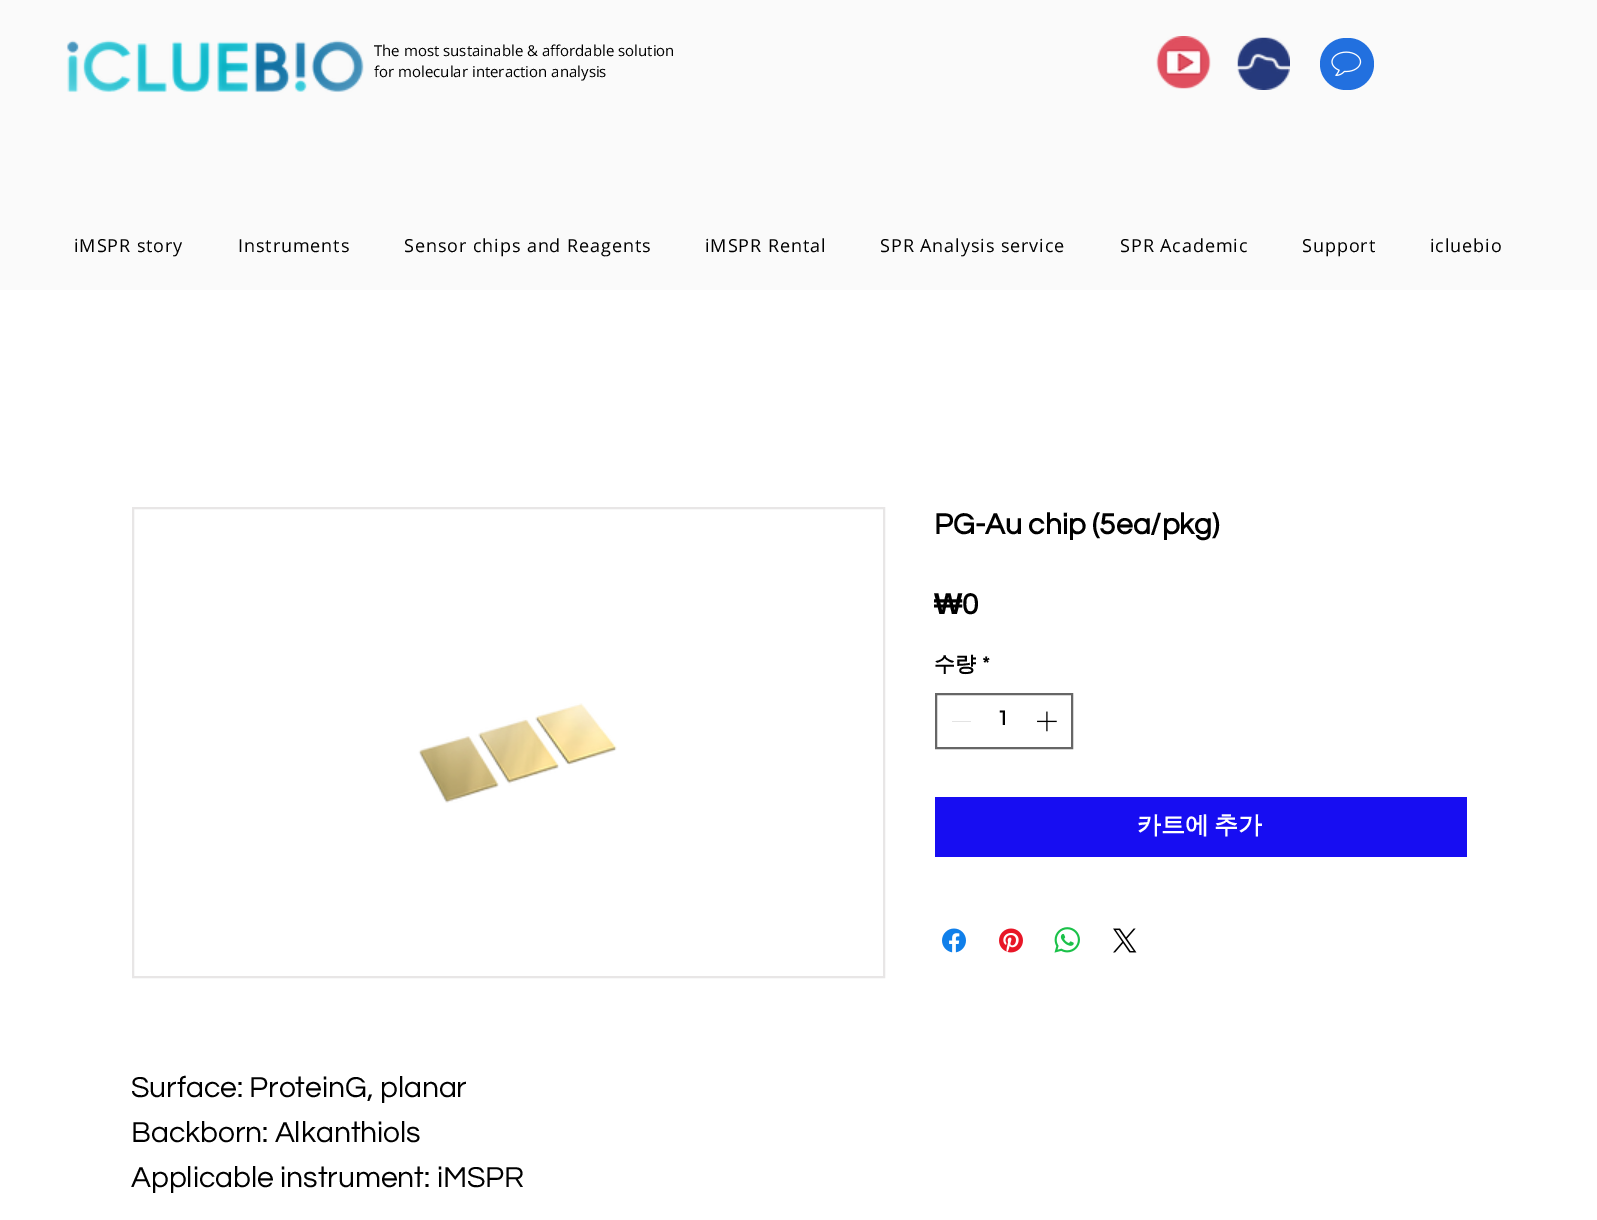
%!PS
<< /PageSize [1597 1220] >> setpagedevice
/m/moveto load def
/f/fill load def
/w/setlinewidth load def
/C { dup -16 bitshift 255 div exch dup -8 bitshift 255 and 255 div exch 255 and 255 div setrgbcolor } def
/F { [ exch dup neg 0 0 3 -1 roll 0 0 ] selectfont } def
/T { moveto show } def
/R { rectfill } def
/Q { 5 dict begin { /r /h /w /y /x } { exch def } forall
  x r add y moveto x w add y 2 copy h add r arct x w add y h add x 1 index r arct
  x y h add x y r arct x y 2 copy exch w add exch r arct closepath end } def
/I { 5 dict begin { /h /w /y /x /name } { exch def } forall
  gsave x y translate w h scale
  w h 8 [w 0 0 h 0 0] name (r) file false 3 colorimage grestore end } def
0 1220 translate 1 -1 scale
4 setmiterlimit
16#FFFFFF C
0 0 1597 1220 R
16#FAFAFA C
0 0 1597 290 R
(1.rgb) 66 40 298 53 I
/OpenSans-Regular 15 F
16#000000 C
(The most sustainable & affordable solution) 374 56 T
(for molecular interaction analysis) 374 77 T
(2.rgb) 1156 36 55 53 I
(3.rgb) 1237 37 53 53 I
16#2270DF C
1320 38 54 52 26 Q f
(4.rgb) 1331 51 31 25 I
/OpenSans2-Regular 18 F
16#000000 C
74 252 m .9 0 (iMSPR story) ashow
238 252 m .9 0 (Instruments) ashow
404 252 m .9 0 (Sensor chips and Reagents) ashow
705 252 m .9 0 (iMSPR Rental) ashow
880 252 m .9 0 (SPR Analysis service) ashow
1120 252 m .9 0 (SPR Academic) ashow
1302 252 m .9 0 (Support) ashow
1430 252 m .9 0 (icluebio) ashow
/Questrial-Bold 30 F
(PG-Au chip \(5ea/pkg\)) 934 534 T
/LiberationSans-Bold 30 F
(₩) 934 614 T
/Questrial-Bold 30 F
(0) 962 614 T
/WenQuanYiZenHei-Bold 21 F
(수량) 934 671 T
/Questrial-Bold 21 F
(*) 982 671 T
16#666666 C
2 w
936 694 136 54 rectstroke
16#E3E3E3 C
952 721 19 1 R
16#000000 C
(1) 997 725 T
(5.rgb) 1037 711 20 21 I
16#170DF2 C
935 797 532 60 R
/WenQuanYiZenHei-Bold 24 F
16#FFFFFF C
1137 833 m -2 0 32 (카트에 추가) widthshow
(6.rgb) 942 928 24 25 I
(7.rgb) 999 928 24 25 I
(8.rgb) 1054 927 26 26 I
(9.rgb) 1113 928 24 25 I
16#E8E6E6 C
133 508 751 469 rectstroke
(10.rgb) 418 703 199 100 I
/Questrial-Regular 30 F
16#000000 C
(Surface: ProteinG, planar) 131 1097 T
(Backborn: Alkanthiols) 131 1142 T
(Applicable instrument: iMSPR) 131 1187 T
showpage
